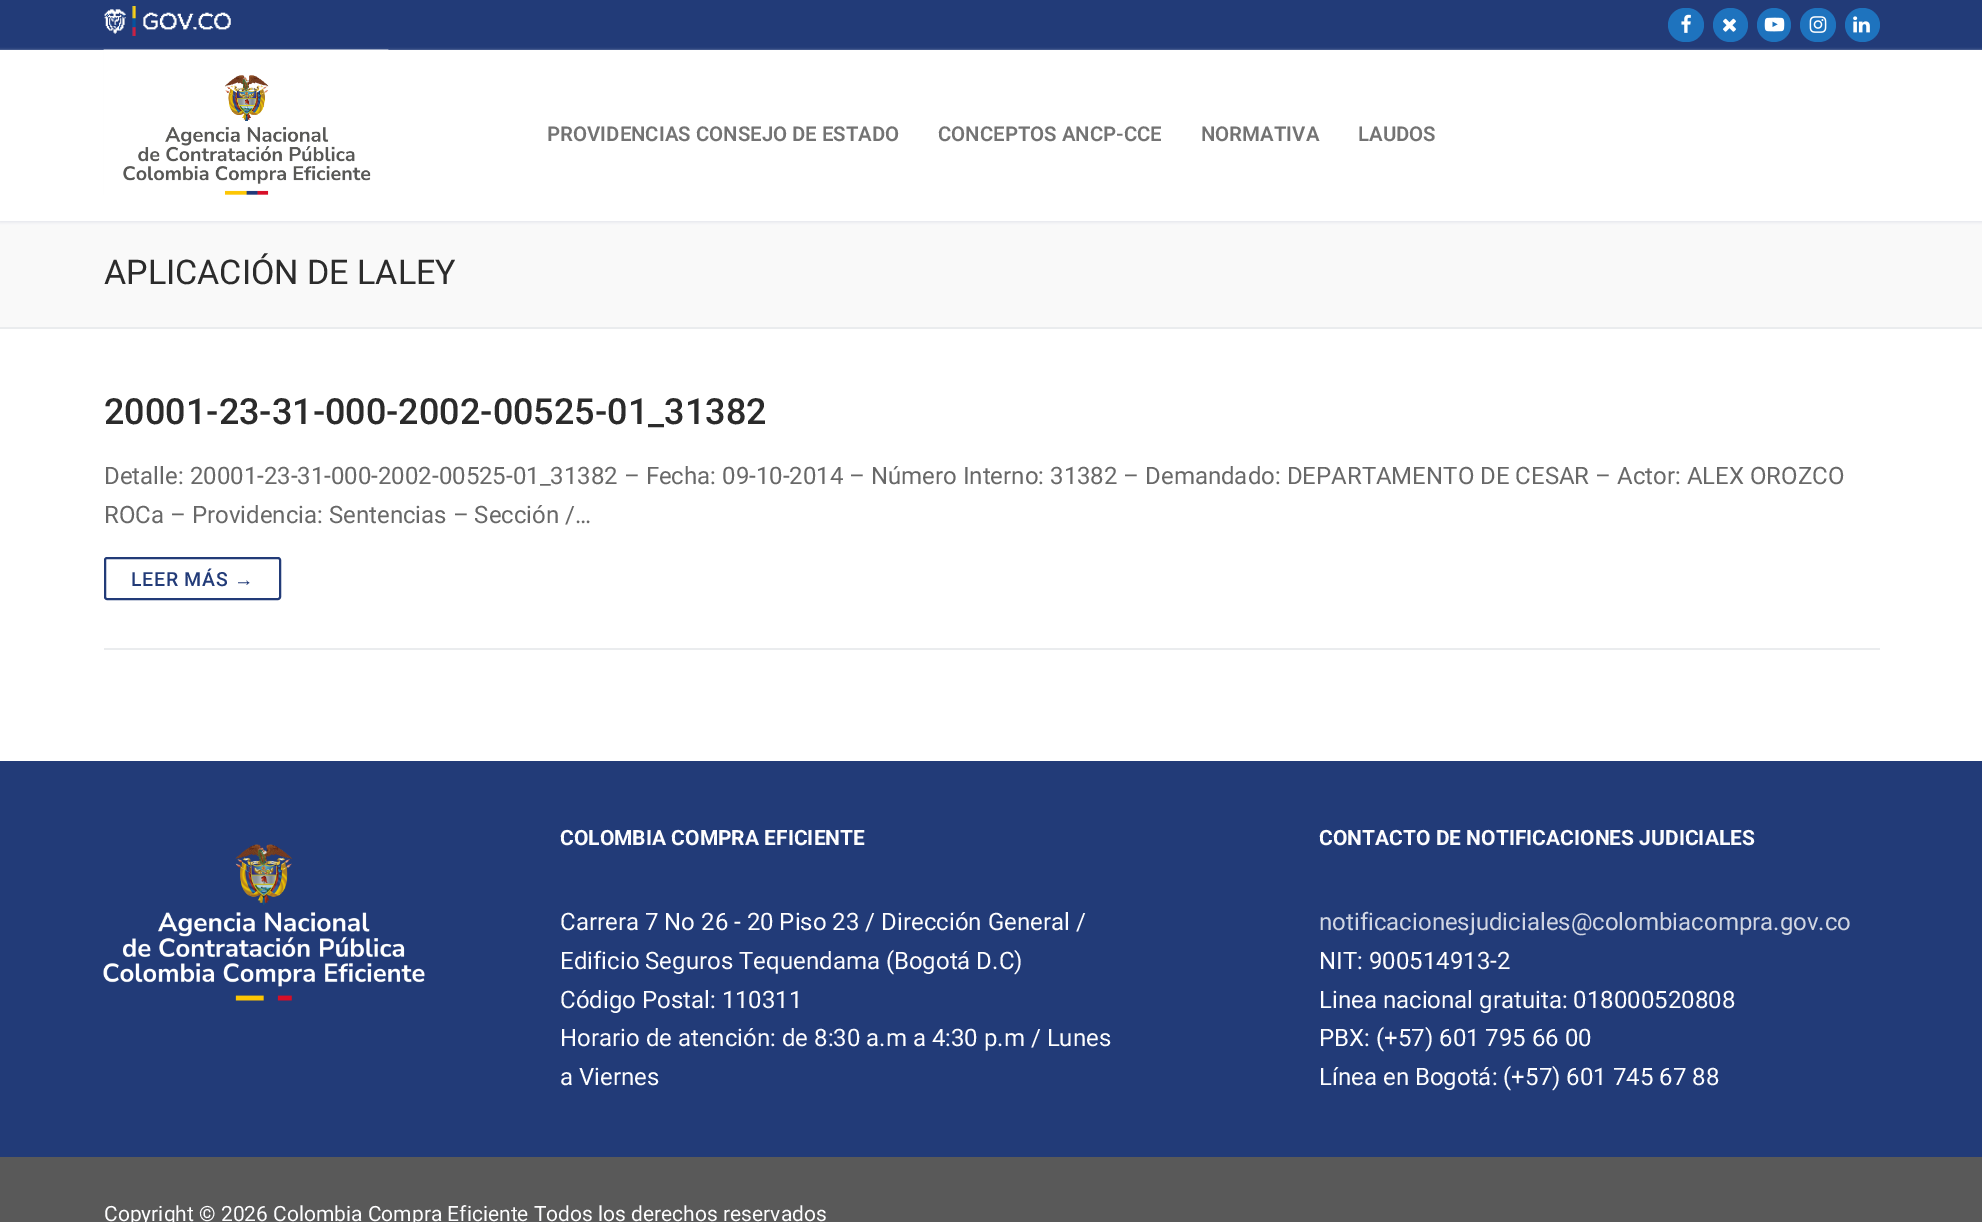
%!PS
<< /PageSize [1982 1222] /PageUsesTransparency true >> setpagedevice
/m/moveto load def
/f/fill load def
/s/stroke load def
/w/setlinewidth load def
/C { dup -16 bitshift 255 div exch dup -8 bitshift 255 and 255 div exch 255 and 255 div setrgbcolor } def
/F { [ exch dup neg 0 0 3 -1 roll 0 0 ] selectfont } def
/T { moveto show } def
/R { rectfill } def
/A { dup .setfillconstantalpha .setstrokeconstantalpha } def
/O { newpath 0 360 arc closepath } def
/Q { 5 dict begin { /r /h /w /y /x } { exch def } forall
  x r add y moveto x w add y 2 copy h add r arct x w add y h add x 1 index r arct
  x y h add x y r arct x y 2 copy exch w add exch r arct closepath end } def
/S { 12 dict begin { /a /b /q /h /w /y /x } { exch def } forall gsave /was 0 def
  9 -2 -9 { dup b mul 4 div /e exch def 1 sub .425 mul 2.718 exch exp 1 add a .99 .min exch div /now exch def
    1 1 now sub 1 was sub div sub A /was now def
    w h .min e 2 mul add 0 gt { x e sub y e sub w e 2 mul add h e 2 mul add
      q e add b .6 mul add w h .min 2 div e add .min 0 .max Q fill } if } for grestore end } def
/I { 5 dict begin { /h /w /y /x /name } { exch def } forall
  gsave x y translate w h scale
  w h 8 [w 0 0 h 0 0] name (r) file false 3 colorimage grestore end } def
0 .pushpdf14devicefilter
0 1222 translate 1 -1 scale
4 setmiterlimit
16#FFFFFF C
0 0 1982 1222 R
16#223B78 C
0 0 1982 50 R
(1.rgb) 104 6 127 30 I
16#1E73BE C
1668 8 36 34 17 Q f
(2.rgb) 1681 14 10 19 I
1713 8 35 34 17 Q f
(3.rgb) 1723 18 13 14 I
1774 25 17 O f
(4.rgb) 1764 17 21 15 I
1800 8 36 34 17 Q f
(5.rgb) 1809 16 18 17 I
1845 8 35 34 17 Q f
(6.rgb) 1853 16 17 17 I
16#F9F9F9 C
0 221 1982 106 R
16#E1E5EA C
0 51 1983 171 0 1.5 1 S
16#FFFFFF C
0 50 1982 171 R
(7.rgb) 103 49 286 146 I
/Roboto-SemiBold 20.4 F
16#737373 C
(PROVIDENCIAS CONSEJO DE ESTADO) 547 141 T
(CONCEPTOS ANCP-CCE) 938 141 T
(NORMATIVA) 1201 141 T
(LAUDOS) 1358 141 T
16#EAECEE C
0 327 1982 2 R
/Roboto-Regular 34 F
16#2B2B2B C
(APLICACIÓN DE LALEY) 104 284 T
16#EAECEE C
104 648 1776 2 R
/Roboto-Medium 36 F
16#2B2B2B C
(20001-23-31-000-2002-00525-01_31382) 104 424 T
/Roboto-Regular 24 F
16#686868 C
(Detalle: 20001-23-31-000-2002-00525-01_31382 – Fecha: 09-10-2014 – Número Interno: 31382 – Demandado: DEPARTAMENTO DE CESAR – Actor: ALEX OROZCO) 104 484 T
(ROCa – Providencia: Sentencias – Sección /…) 104 523 T
16#223B78 C
2 w
105 558 175 41 2 Q s
/Roboto-Medium 19.5 F
131 586 m .75 0 (LEER MÁS) ashow
/LiberationSans-Regular 19.5 F
234 586 m .75 0 (→) ashow
0 761 1982 396 R
(8.rgb) 103 844 322 157 I
/Roboto-Bold 21 F
16#FDFDFE C
(COLOMBIA COMPRA EFICIENTE) 560 845 T
/Roboto-Regular 24 F
(Carrera 7 No 26 - 20 Piso 23 / Dirección General /) 560 930 T
(Edificio Seguros Tequendama \(Bogotá D.C\)) 560 969 T
(Código Postal: 110311) 560 1008 T
(Horario de atención: de 8:30 a.m a 4:30 p.m / Lunes) 560 1046 T
(a Viernes) 560 1085 T
/Roboto-Bold 21 F
(CONTACTO DE NOTIFICACIONES JUDICIALES) 1319 845 T
/Roboto-Regular 24 F
16#D1D6E3 C
(notificacionesjudiciales@colombiacompra.gov.co) 1319 930 T
16#FDFDFE C
(NIT: 900514913-2) 1319 969 T
(Linea nacional gratuita: 018000520808) 1319 1008 T
(PBX: \(+57\) 601 795 66 00) 1319 1046 T
(Línea en Bogotá: \(+57\) 601 745 67 88) 1319 1085 T
16#595959 C
0 1157 1982 65 R
/Roboto-Regular 21 F
16#FDFDFE C
(Copyright © 2026 Colombia Compra Eficiente Todos los derechos reservados) 104 1221 T
.poppdf14devicefilter showpage
